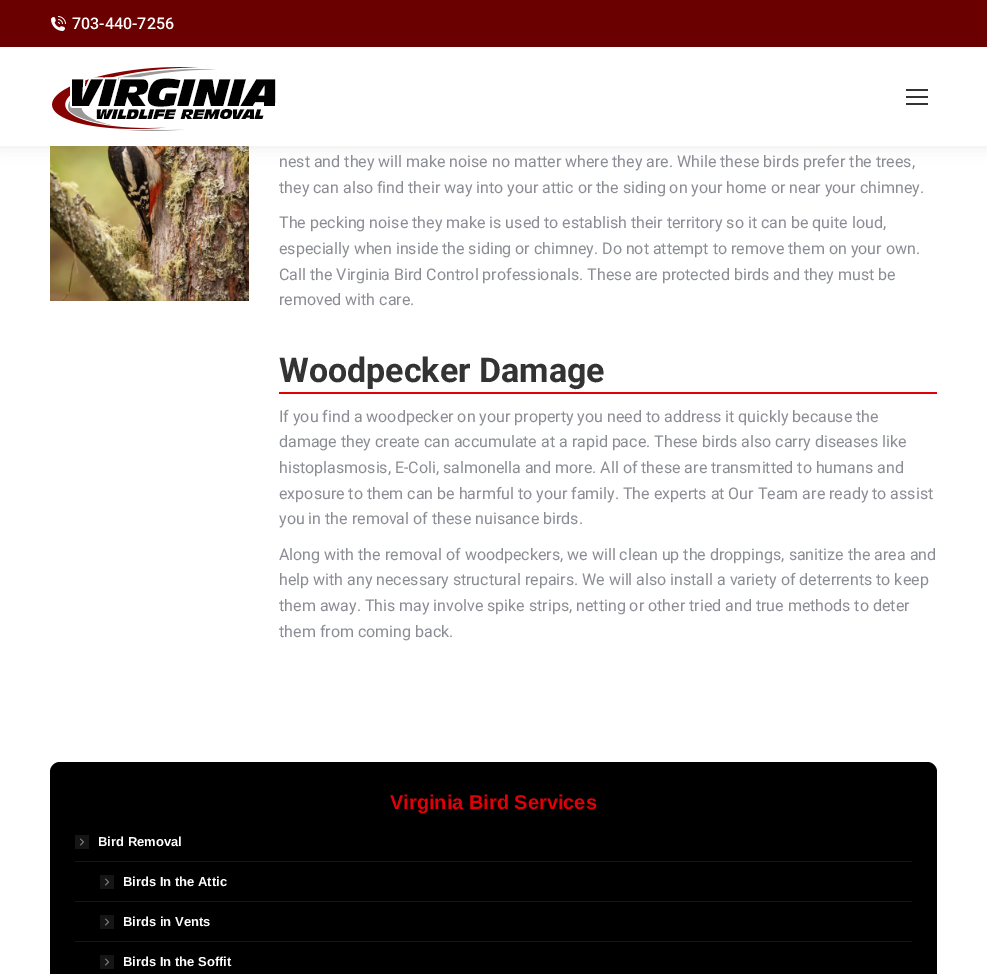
%!PS
<< /PageSize [987 974] /PageUsesTransparency true >> setpagedevice
/f/fill load def
/C { dup -16 bitshift 255 div exch dup -8 bitshift 255 and 255 div exch 255 and 255 div setrgbcolor } def
/F { [ exch dup neg 0 0 3 -1 roll 0 0 ] selectfont } def
/T { moveto show } def
/R { rectfill } def
/A { dup .setfillconstantalpha .setstrokeconstantalpha } def
/Q { 5 dict begin { /r /h /w /y /x } { exch def } forall
  x r add y moveto x w add y 2 copy h add r arct x w add y h add x 1 index r arct
  x y h add x y r arct x y 2 copy exch w add exch r arct closepath end } def
/S { 12 dict begin { /a /b /q /h /w /y /x } { exch def } forall gsave /was 0 def
  9 -2 -9 { dup b mul 4 div /e exch def 1 sub .425 mul 2.718 exch exp 1 add a .99 .min exch div /now exch def
    1 1 now sub 1 was sub div sub A /was now def
    w h .min e 2 mul add 0 gt { x e sub y e sub w e 2 mul add h e 2 mul add
      q e add b .6 mul add w h .min 2 div e add .min 0 .max Q fill } if } for grestore end } def
/I { 5 dict begin { /h /w /y /x /name } { exch def } forall
  gsave x y translate w h scale
  w h 8 [w 0 0 h 0 0] name (r) file false 3 colorimage grestore end } def
0 .pushpdf14devicefilter
0 974 translate 1 -1 scale
4 setmiterlimit
16#FFFFFF C
0 0 987 974 R
(3.rgb) 50 146 199 155 I
16#000000 C
-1 -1 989 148 0 7.5 .07 S
16#FFFFFF C
0 47 987 99 R
16#6B0000 C
0 0 987 46 R
(1.rgb) 51 16 15 15 I
/Roboto-Medium 16 F
16#FFFFFF C
(703-440-7256) 72 29 T
16#650606 C
0 46 987 1 R
(2.rgb) 52 67 224 64 I
16#333333 C
906 89 22 2 R
906 96 22 2 R
906 103 22 2 R
/Roboto-Regular 16 F
16#8B8D94 C
(nest and they will make noise no matter where they are. While these birds prefer the trees,) 279 167 T
(they can also find their way into your attic or the siding on your home or near your chimney.) 279 193 T
(The pecking noise they make is used to establish their territory so it can be quite loud,) 279 228 T
(especially when inside the siding or chimney. Do not attempt to remove them on your own.) 279 254 T
(Call the Virginia Bird Control professionals. These are protected birds and they must be) 279 280 T
(removed with care.) 279 305 T
16#E00007 C
279 392 658 2 R
/Roboto-Bold 34 F
16#333333 C
(Woodpecker Damage) 279 382 T
/Roboto-Regular 16 F
16#8B8D94 C
(If you find a woodpecker on your property you need to address it quickly because the) 279 422 T
(damage they create can accumulate at a rapid pace. These birds also carry diseases like) 279 447 T
(histoplasmosis, E-Coli, salmonella and more. All of these are transmitted to humans and) 279 473 T
(exposure to them can be harmful to your family. The experts at Our Team are ready to assist) 279 499 T
(you in the removal of these nuisance birds.) 279 524 T
(Along with the removal of woodpeckers, we will clean up the droppings, sanitize the area and) 279 560 T
(help with any necessary structural repairs. We will also install a variety of deterrents to keep) 279 585 T
(them away. This may involve spike strips, netting or other tried and true methods to deter) 279 611 T
(them from coming back.) 279 637 T
16#000000 C
50 762 887 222 10 Q f
/LiberationSans-Bold 20 F
16#E00007 C
(Virginia Bird Services) 390 809 T
16#151516 C
75 835 14 14 R
/LiberationSans-Bold 13 F
16#FFFFFF C
(Bird Removal) 98 846 T
(4.rgb) 80 838 4 8 I
16#151516 C
75 861 837 1 R
100 875 14 14 R
16#FFFFFF C
(Birds In the Attic) 123 886 T
(4.rgb) 105 878 4 8 I
16#151516 C
75 901 837 1 R
100 915 14 14 R
16#FFFFFF C
(Birds in Vents) 123 926 T
(4.rgb) 105 918 4 8 I
16#151516 C
75 941 837 1 R
100 955 14 14 R
16#FFFFFF C
(Birds In the Soffit) 123 966 T
(4.rgb) 105 958 4 8 I
.poppdf14devicefilter showpage
